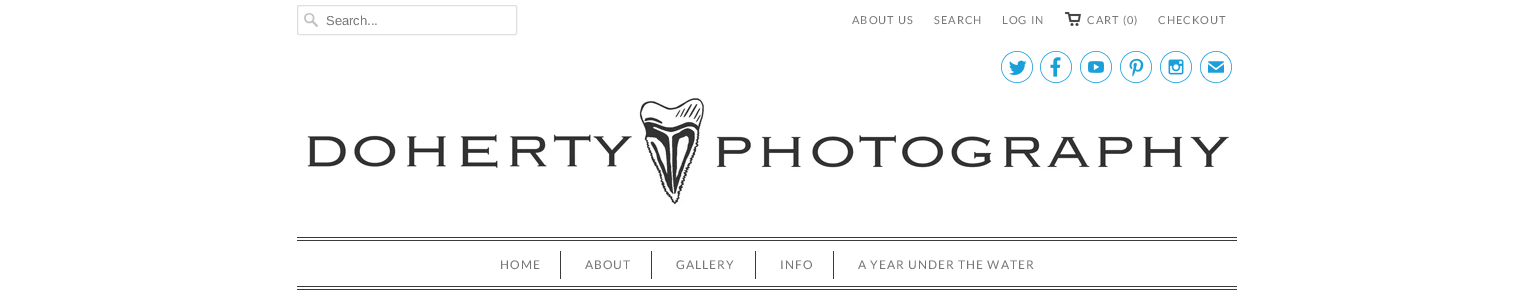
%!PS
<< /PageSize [1534 303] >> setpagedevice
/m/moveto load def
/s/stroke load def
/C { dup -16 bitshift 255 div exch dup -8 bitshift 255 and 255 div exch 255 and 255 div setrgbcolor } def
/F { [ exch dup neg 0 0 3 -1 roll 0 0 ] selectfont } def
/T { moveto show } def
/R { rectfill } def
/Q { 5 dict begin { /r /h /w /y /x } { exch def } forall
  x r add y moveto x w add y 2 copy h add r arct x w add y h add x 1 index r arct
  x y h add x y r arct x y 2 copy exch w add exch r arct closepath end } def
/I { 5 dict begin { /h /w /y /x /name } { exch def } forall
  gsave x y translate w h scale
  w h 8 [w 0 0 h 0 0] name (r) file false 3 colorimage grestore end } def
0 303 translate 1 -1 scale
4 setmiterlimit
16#FFFFFF C
0 0 1534 303 R
(1.rgb) 304 13 14 14 I
16#DFDFDF C
297.5 5.5 219 29 1.5 Q s
/LiberationSans-Regular 13 F
16#777777 C
(Search...) 326 25 T
/Lato-Regular 11 F
852 24 m 1 0 (ABOUT US) ashow
934 24 m 1 0 (SEARCH) ashow
1002 24 m 1 0 (LOG IN) ashow
(2.rgb) 1065 12 16 14 I
1087 24 m 1 0 (CART \(0\)) ashow
1158 24 m 1 0 (CHECKOUT) ashow
(3.rgb) 1001 51 32 32 I
(4.rgb) 1040 51 32 32 I
(5.rgb) 1080 51 32 32 I
(6.rgb) 1120 51 32 32 I
(7.rgb) 1160 51 32 32 I
/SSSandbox-Regular 32 F
16#1B9FD8 C
(✉) 1200 83 T
(8.rgb) 307 97 922 108 I
16#3B3939 C
297 237 940 1 R
297 240 940 1 R
297 286 940 1 R
297 289 940 1 R
560 251 1 28 R
/Lato-Regular 12 F
16#777777 C
500 269 m 1 0 (HOME) ashow
16#3B3939 C
651 251 1 28 R
16#777777 C
585 269 m 1 0 (ABOUT) ashow
16#3B3939 C
755 251 1 28 R
16#777777 C
676 269 m 1 0 (GALLERY) ashow
16#3B3939 C
833 251 1 28 R
16#777777 C
780 269 m 1 0 (INFO) ashow
858 269 m 1 0 (A YEAR UNDER THE WATER) ashow
showpage
